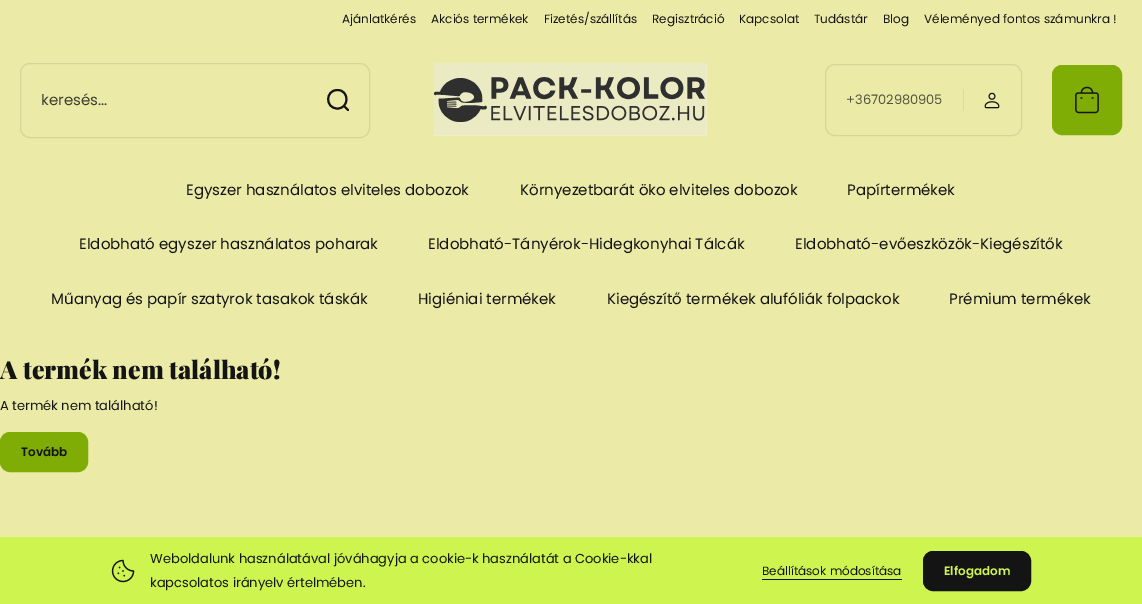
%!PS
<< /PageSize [1142 604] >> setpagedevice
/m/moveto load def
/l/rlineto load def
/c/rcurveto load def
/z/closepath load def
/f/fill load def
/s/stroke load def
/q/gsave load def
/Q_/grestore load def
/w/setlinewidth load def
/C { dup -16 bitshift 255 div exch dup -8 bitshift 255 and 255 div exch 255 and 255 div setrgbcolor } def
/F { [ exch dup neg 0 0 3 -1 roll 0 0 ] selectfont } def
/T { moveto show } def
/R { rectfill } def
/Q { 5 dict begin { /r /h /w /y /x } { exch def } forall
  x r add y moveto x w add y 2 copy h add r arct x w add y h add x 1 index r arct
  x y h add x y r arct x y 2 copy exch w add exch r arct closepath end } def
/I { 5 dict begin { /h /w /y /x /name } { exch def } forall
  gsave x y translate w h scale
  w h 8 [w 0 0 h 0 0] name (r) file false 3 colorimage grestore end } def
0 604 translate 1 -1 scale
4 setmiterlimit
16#EBEBA7 C
0 0 1142 604 R
/Poppins-Regular 12 F
16#141414 C
(Ajánlatkérés) 342 23 T
(Akciós termékek) 431 23 T
(Fizetés/szállítás) 544 23 T
(Regisztráció) 652 23 T
(Kapcsolat) 739 23 T
(Tudástár) 814 23 T
(Blog) 883 23 T
(Véleményed fontos számunkra !) 924 23 T
16#D6D698 C
20.5 63.5 349 74 9.5 Q s
/Poppins-Regular 15 F
16#3F3F31 C
(keresés...) 41 105 T
16#141414 C
2 w
1 setlinecap
1 setlinejoin
348 110 m -4 -4 l 337.5 108.5 m -12.5 0 -12.5 -18.5 0 -18.5 c 12 0 12 18.5 0 18.5 c z s
(1.rgb) 434 63 273 73 I
16#D6D698 C
1 w
0 setlinecap
0 setlinejoin
825.5 64.5 196 71 9.5 Q s
/Poppins-Regular 13 F
16#555540 C
(+36702980905) 846 104 T
16#DCDC9D C
963 89 1 22 R
(2.rgb) 984 92 16 17 I
16#80AD05 C
1052.5 65.5 69 69 9.5 Q q f Q_
s
(3.rgb) 1075 86 24 28 I
/Poppins-Regular 15 F
16#141414 C
(Egyszer használatos elviteles dobozok) 186 195 T
(Környezetbarát öko elviteles dobozok) 520 195 T
(Papírtermékek) 847 195 T
(Eldobható egyszer használatos poharak) 79 249 T
(Eldobható-Tányérok-Hidegkonyhai Tálcák) 428 249 T
(Eldobható-evőeszközök-Kiegészítők) 795 249 T
(Műanyag és papír szatyrok tasakok táskák) 51 304 T
(Higiéniai termékek) 418 304 T
(Kiegészítő termékek alufóliák folpackok) 607 304 T
(Prémium termékek) 949 304 T
/PlayfairDisplay-Black 25 F
(A termék nem található!) 0 379 T
/Poppins-Regular 13 F
(A termék nem található!) 0 410 T
16#80AD05 C
.5 432.5 87 39 9.5 Q q f Q_
s
/Poppins-SemiBold 12 F
16#141414 C
(Tovább) 21 456 T
16#CEF54F C
0 537 1142 67 R
(4.rgb) 111 559 24 24 I
/Poppins-Regular 13 F
16#141414 C
(Weboldalunk használatával jóváhagyja a cookie-k használatát a Cookie-kkal) 150 563 T
(kapcsolatos irányelv értelmében.) 150 587 T
/Poppins-Regular 12 F
(Beállítások módosítása) 762 575 T
762 579 140 1 R
923.5 551.5 107 39 9.5 Q q f Q_
s
/Poppins-SemiBold 12 F
16#CEF54F C
(Elfogadom) 944 575 T
showpage
